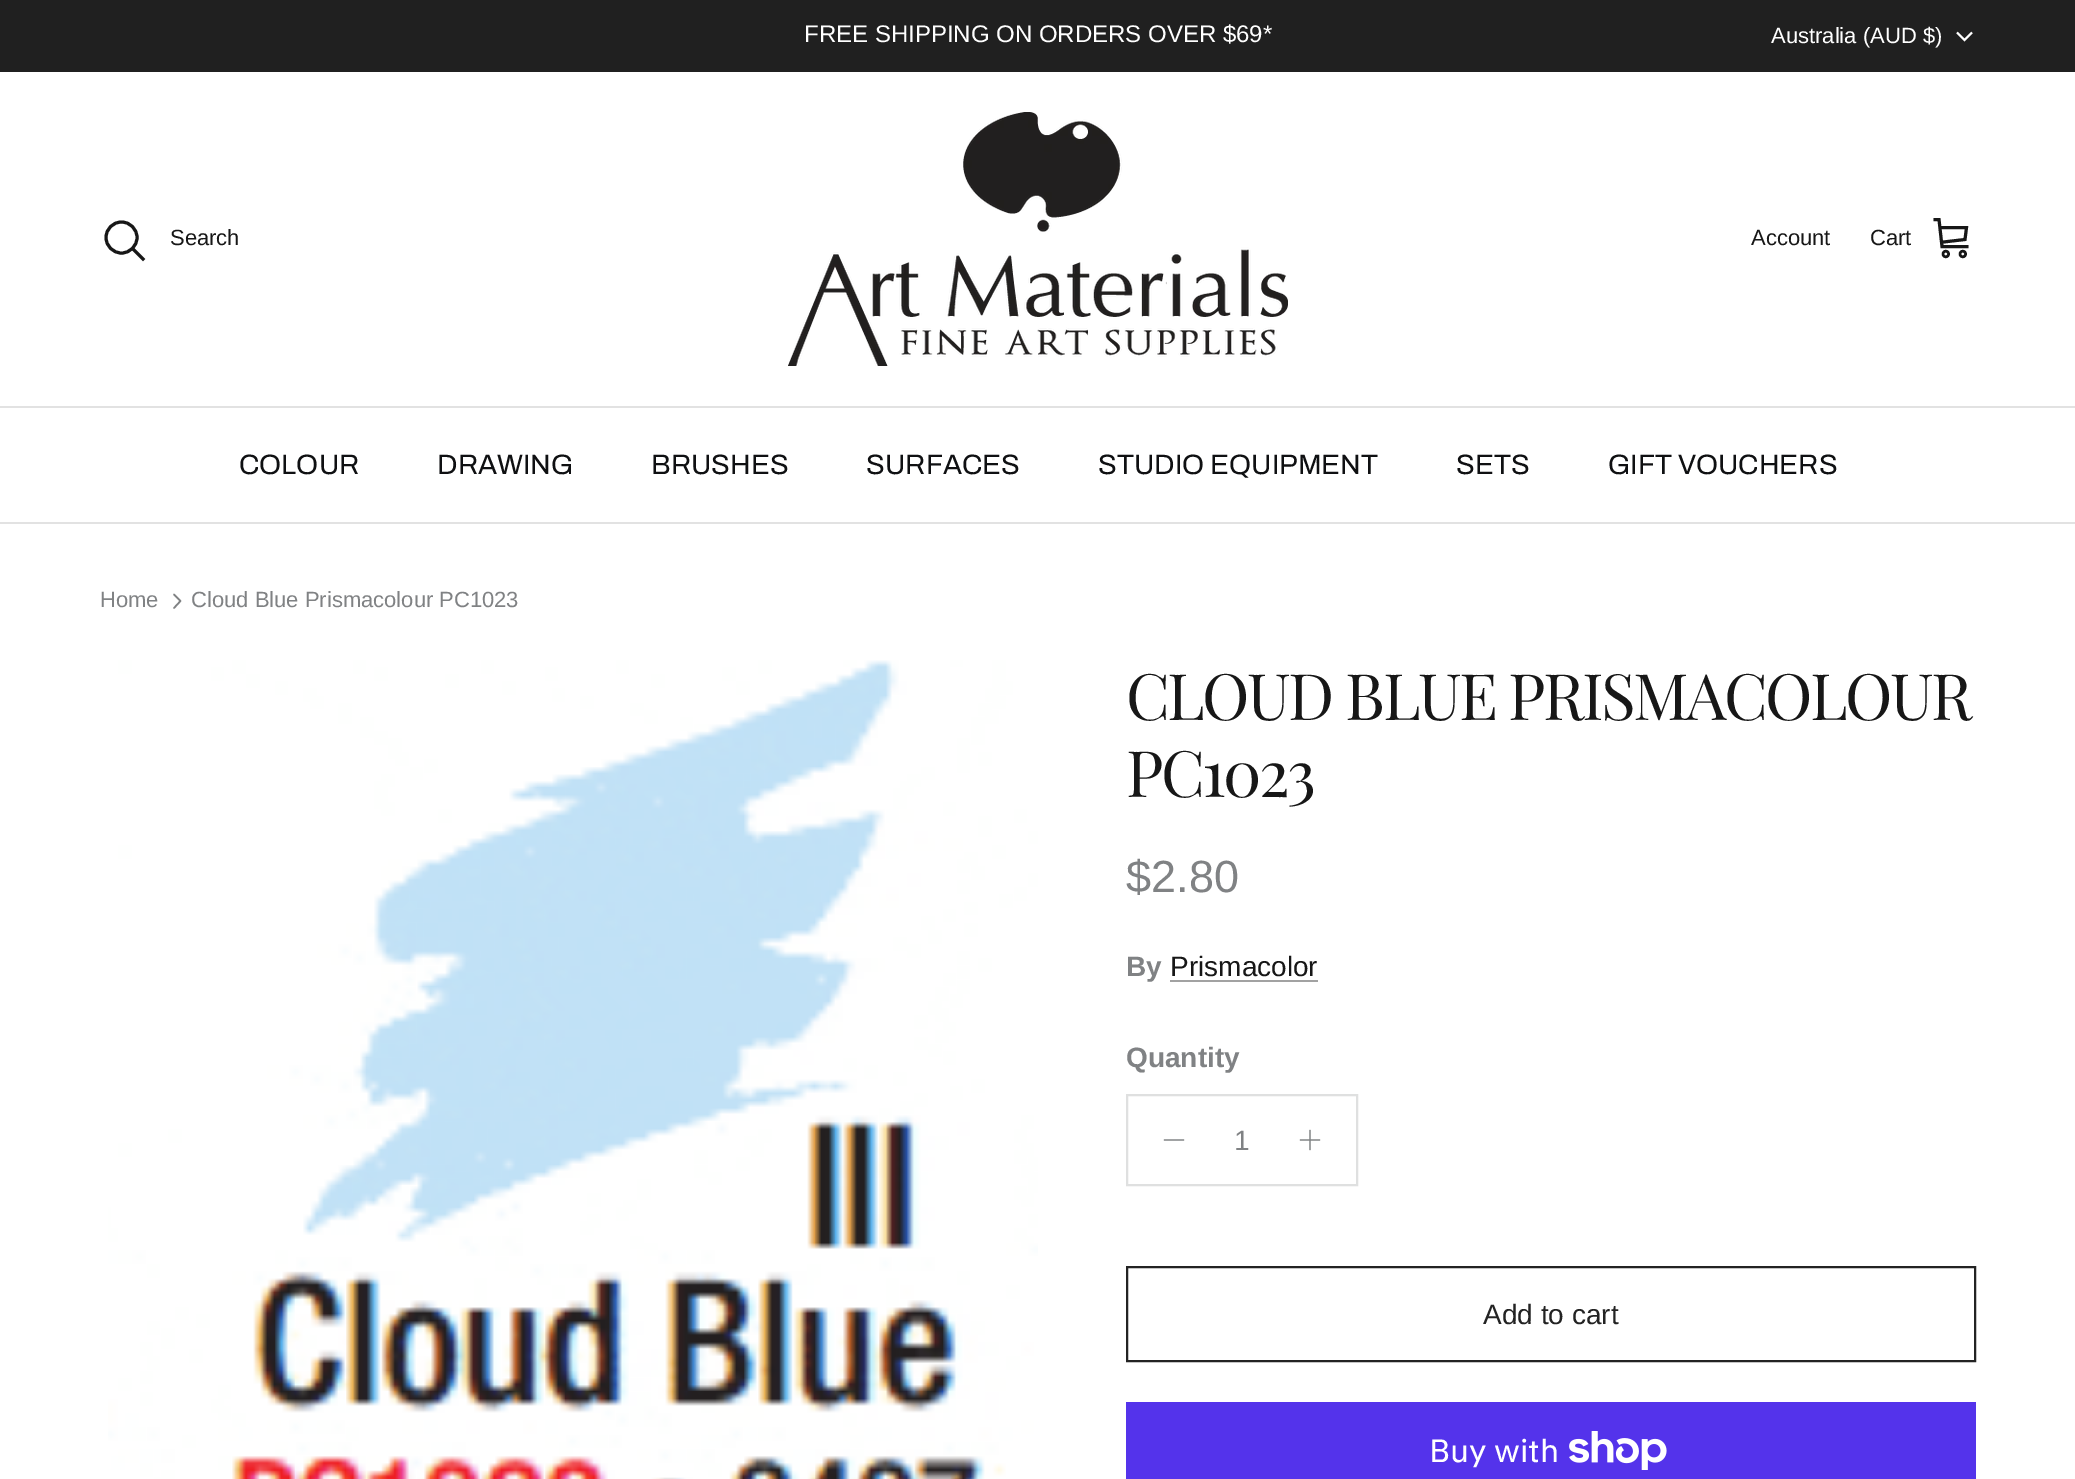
%!PS
<< /PageSize [2075 1479] >> setpagedevice
/m/moveto load def
/l/rlineto load def
/s/stroke load def
/w/setlinewidth load def
/C { dup -16 bitshift 255 div exch dup -8 bitshift 255 and 255 div exch 255 and 255 div setrgbcolor } def
/F { [ exch dup neg 0 0 3 -1 roll 0 0 ] selectfont } def
/T { moveto show } def
/R { rectfill } def
/O { newpath 0 360 arc closepath } def
/I { 5 dict begin { /h /w /y /x /name } { exch def } forall
  gsave x y translate w h scale
  w h 8 [w 0 0 h 0 0] name (r) file false 3 colorimage grestore end } def
0 1479 translate 1 -1 scale
4 setmiterlimit
16#FFFFFF C
0 0 2075 1479 R
16#202020 C
0 0 2075 72 R
/Arimo-Regular 24 F
16#FFFFFF C
(FREE SHIPPING ON ORDERS OVER $69*) 804 42 T
/Arimo-Regular 22 F
(Australia \(AUD $\)) 1771 43 T
2 w
1972 32.5 m -7.5 7.5 l -7.5 -7.5 l s
16#E2E2E2 C
0 406 2075 2 R
16#171717 C
3 w
121.5 237.5 15.5 O s
(Search) 170 245 T
2 setlinecap
134 250 m 9 9 l s
(1.rgb) 788 112 500 254 I
(Account) 1751 245 T
(Cart) 1870 245 T
1935 219.5 m 4 0 l 3 27 l 25 0 l 1940.5 227.5 m 26 0 l -1.5 12 l -21.5 2.5 l s
2.5 w
0 setlinecap
1945.8 254 2.8 O s
1962.8 254 2.8 O s
16#E2E2E2 C
0 522 2075 2 R
/Archivo-Regular 28 F
16#0F1012 C
(COLOUR) 239 474 T
(DRAWING) 437 474 T
(BRUSHES) 651 474 T
(SURFACES) 866 474 T
(STUDIO EQUIPMENT) 1098 474 T
(SETS) 1456 474 T
(GIFT VOUCHERS) 1608 474 T
/Arimo-Regular 22 F
16#808284 C
(Home) 100 607 T
1.6 w
1 setlinecap
1 setlinejoin
174 608 m 6.5 -7 l -6.5 -6.5 l s
(Cloud Blue Prismacolour PC1023) 191 607 T
(2.rgb) 108 660 930 819 I
/PlayfairDisplay-Regular 64 F
16#171717 C
1126 720 m -2.6 0 (CLOUD BLUE PRISMACOLOUR) ashow
1126 797 m -2.6 0 (PC1023) ashow
/Arimo-Regular 45 F
16#808284 C
($2.80) 1126 892 T
/Arimo-Bold 28 F
(By) 1126 976 T
/Arimo-Regular 28 F
16#171717 C
(Prismacolor) 1170 976 T
16#A2A2A2 C
1170 980 148 2 R
/Arimo-Bold 28 F
16#808284 C
(Quantity) 1126 1067 T
16#DFE0E0 C
2 w
0 setlinecap
0 setlinejoin
1127 1095 230 90 rectstroke
16#808284 C
1.3 w
1 setlinecap
1 setlinejoin
1164.5 1140 m 19 0 l s
/Arimo-Regular 28 F
(1) 1234 1150 T
1310 1130.5 m 0 19 l 1300.5 1140 m 19 0 l s
16#232323 C
2 w
0 setlinecap
0 setlinejoin
1127 1267 848 94 rectstroke
(Add to cart) 1483 1324 T
16#5433EB C
1126 1402 850 77 R
/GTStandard-Regular 32 F
16#FFFFFF C
(Buy with) 1429 1462 T
(3.rgb) 1569 1431 98 39 I
showpage
